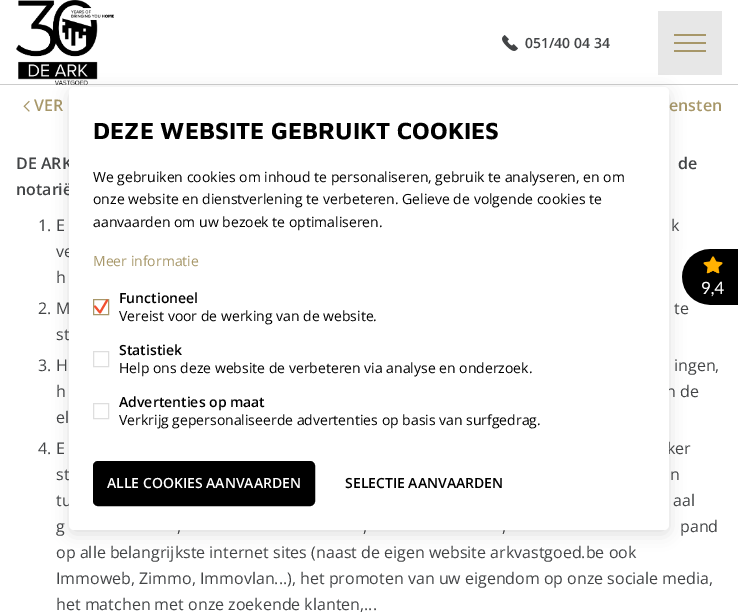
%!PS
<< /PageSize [738 616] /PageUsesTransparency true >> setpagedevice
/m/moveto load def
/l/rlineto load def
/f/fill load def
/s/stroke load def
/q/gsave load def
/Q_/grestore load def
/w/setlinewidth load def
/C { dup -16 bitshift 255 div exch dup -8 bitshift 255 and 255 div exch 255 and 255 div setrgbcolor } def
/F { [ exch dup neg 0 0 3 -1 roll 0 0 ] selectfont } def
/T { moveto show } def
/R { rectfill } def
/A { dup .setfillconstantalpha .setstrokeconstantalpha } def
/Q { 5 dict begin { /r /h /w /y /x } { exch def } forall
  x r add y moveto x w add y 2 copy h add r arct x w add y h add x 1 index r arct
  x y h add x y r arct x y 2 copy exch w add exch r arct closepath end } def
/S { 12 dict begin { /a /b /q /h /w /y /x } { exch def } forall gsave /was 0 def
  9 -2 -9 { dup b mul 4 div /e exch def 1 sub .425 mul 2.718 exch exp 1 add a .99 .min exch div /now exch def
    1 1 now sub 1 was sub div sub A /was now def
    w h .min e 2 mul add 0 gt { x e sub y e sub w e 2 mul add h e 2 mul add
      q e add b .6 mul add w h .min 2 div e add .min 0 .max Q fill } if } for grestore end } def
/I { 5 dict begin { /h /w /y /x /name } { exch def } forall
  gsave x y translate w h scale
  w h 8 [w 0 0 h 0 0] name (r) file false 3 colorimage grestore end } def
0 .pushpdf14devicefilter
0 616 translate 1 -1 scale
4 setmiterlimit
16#FFFFFF C
0 0 738 616 R
16#CCCCCC C
0 84 738 1 R
(1.rgb) 16 0 98 85 I
(2.rgb) 502 35 16 16 I
/OpenSans-SemiBold 14 F
16#424446 C
(051/40 04 34) 525 48 T
16#A79769 C
674 42 32 2 R
16#E7E7E7 C
674 11 32 31 R
706 11 16 33 R
674 44 48 31 R
658 11 16 64 R
16#A79769 C
674 34 32 2 R
674 50 32 2 R
(3.rgb) 23 100 7 12 I
/OpenSans-SemiBold 16 F
(VER) 34 111 T
(ensten) 669 111 T
16#424446 C
(DE ARK) 16 169 T
(de) 678 169 T
(notarië) 16 195 T
/OpenSans-Regular 16 F
(1. E) 38 231 T
(k) 671 231 T
(ve) 56 257 T
(h) 56 283 T
(2. M) 38 314 T
(te) 674 314 T
(st) 56 340 T
(3. H) 38 371 T
(ingen,) 674 371 T
(h) 56 397 T
(n de) 666 397 T
(el) 56 423 T
(4. E) 38 454 T
(ker) 667 454 T
(st) 56 480 T
(n) 670 480 T
(tu) 56 506 T
(aal) 673 506 T
(g) 56 532 T
(,) 177 532 T
(,) 363 532 T
(,) 502 532 T
(pand) 680 532 T
(op alle belangrijkste internet sites \(naast de eigen website arkvastgoed.be ook) 56 558 T
(Immoweb, Zimmo, Immovlan...\), het promoten van uw eigendom op onze sociale media,) 56 584 T
(het matchen met onze zoekende klanten,...) 56 610 T
16#333333 C
69 91 600 443 5 8 .16 S
16#FFFFFF C
69 87 600 443 5 Q f
/MavenPro-Bold 24 F
16#000000 C
(DEZE WEBSITE GEBRUIKT COOKIES) 93 139 T
/OpenSans-Regular 14 F
(We gebruiken cookies om inhoud te personaliseren, gebruik te analyseren, en om) 93 182 T
(onze website en dienstverlening te verbeteren. Gelieve de volgende cookies te) 93 204 T
(aanvaarden om uw bezoek te optimaliseren.) 93 227 T
16#A79769 C
(Meer informatie) 93 266 T
93.5 299.5 15 15 rectstroke
/OpenSans-SemiBold 14 F
16#000000 C
(Functioneel) 119 303 T
16#F25130 C
2 w
1 setlinecap
1 setlinejoin
95 306.5 m 5 6 l 7 -12 l s
/OpenSans-Regular 14 F
16#000000 C
(Vereist voor de werking van de website.) 119 321 T
16#DEDEDE C
1 w
0 setlinecap
0 setlinejoin
93.5 351.5 15 15 rectstroke
/OpenSans-SemiBold 14 F
16#000000 C
(Statistiek) 119 355 T
/OpenSans-Regular 14 F
(Help ons deze website de verbeteren via analyse en onderzoek.) 119 373 T
16#DEDEDE C
93.5 403.5 15 15 rectstroke
/OpenSans-SemiBold 14 F
16#000000 C
(Advertenties op maat) 119 407 T
/OpenSans-Regular 14 F
(Verkrijg gepersonaliseerde advertenties op basis van surfgedrag.) 119 425 T
94 462 220 43 4 Q q f Q_
2 w
s
/OpenSans-SemiBold 14 F
16#FFFFFF C
(ALLE COOKIES AANVAARDEN) 107 488 T
16#000000 C
(SELECTIE AANVAARDEN) 345 488 T
(4.rgb) 682 249 56 56 I
.poppdf14devicefilter showpage
